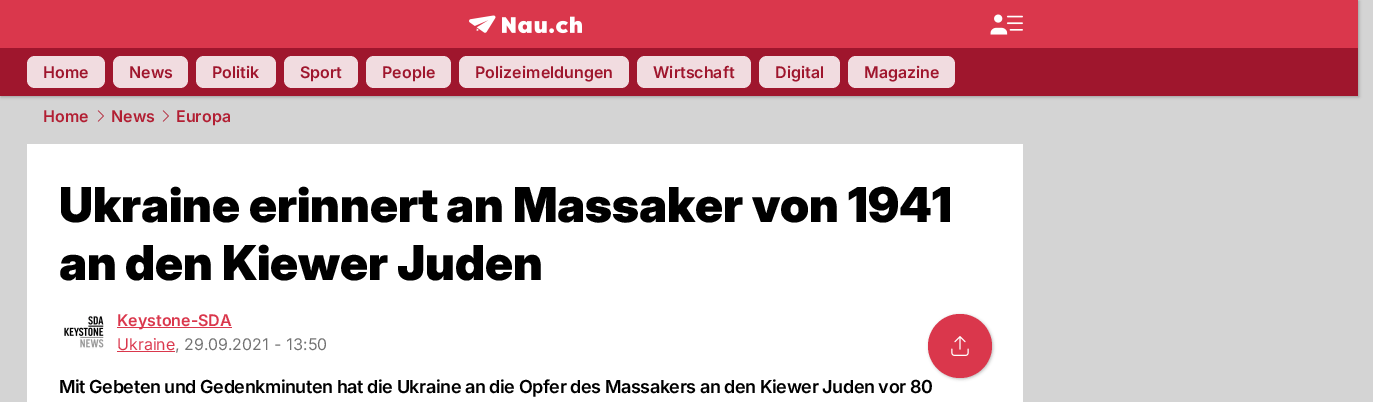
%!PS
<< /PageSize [1373 402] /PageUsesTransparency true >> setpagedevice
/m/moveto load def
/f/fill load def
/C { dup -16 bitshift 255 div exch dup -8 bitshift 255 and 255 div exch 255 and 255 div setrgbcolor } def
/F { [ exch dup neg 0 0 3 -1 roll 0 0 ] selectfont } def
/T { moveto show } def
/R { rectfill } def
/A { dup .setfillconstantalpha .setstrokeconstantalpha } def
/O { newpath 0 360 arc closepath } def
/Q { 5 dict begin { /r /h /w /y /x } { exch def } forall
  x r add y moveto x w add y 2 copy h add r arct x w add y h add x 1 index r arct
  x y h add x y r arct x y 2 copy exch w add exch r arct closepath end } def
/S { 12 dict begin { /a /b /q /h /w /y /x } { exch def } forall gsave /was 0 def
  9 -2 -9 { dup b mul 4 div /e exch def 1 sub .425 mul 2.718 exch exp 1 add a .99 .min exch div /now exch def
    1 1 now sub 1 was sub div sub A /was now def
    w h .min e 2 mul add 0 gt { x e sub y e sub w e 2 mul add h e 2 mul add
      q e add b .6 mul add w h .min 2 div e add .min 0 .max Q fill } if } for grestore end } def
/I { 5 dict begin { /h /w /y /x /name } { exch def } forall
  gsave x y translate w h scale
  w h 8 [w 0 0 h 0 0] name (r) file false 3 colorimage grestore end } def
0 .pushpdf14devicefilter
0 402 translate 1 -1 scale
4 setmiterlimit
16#D4D4D4 C
0 0 1373 402 R
16#000000 C
1 1 1358 96 0 1.5 .25 S
16#DA374C C
0 0 1358 48 R
(1.rgb) 469 15 113 19 I
(2.rgb) 990 14 33 21 I
16#9F162D C
0 48 1358 48 R
16#F1DCE0 C
27 56 78 32 8 Q f
/Inter-SemiBold 16 F
16#9F162D C
(Home) 43 78 T
16#F1DCE0 C
113 56 75 32 8 Q f
16#9F162D C
(News) 129 78 T
16#F1DCE0 C
196 56 80 32 8 Q f
16#9F162D C
(Politik) 212 78 T
16#F1DCE0 C
284 56 74 32 8 Q f
16#9F162D C
(Sport) 300 78 T
16#F1DCE0 C
366 56 85 32 8 Q f
16#9F162D C
(People) 382 78 T
16#F1DCE0 C
459 56 170 32 8 Q f
16#9F162D C
(Polizeimeldungen) 475 78 T
16#F1DCE0 C
637 56 114 32 8 Q f
16#9F162D C
(Wirtschaft) 653 78 T
16#F1DCE0 C
759 56 81 32 8 Q f
16#9F162D C
(Digital) 775 78 T
16#F1DCE0 C
848 56 107 32 8 Q f
16#9F162D C
(Magazine) 864 78 T
16#B21F33 C
(Home) 43 122 T
(3.rgb) 97 110 7 12 I
(News) 111 122 T
(3.rgb) 162 110 7 12 I
(Europa) 176 122 T
16#FFFFFF C
27 144 996 258 R
/Inter-Black 48 F
16#000000 C
(Ukraine erinnert an Massaker von 1941) 59 222 T
(an den Kiewer Juden) 59 280 T
(4.rgb) 64 315 40 34 I
16#DA374C C
117 327 115 1 R
/Inter-SemiBold 16 F
(Keystone-SDA) 117 326 T
/Inter-Regular 16 F
(Ukraine) 117 350 T
117 351 58 1 R
16#727272 C
(, 29.09.2021 - 13:50) 175 350 T
/Inter-SemiBold 18 F
16#000000 C
59 393 m -.45 0 (Mit Gebeten und Gedenkminuten hat die Ukraine an die Opfer des Massakers an den Kiewer Juden vor 80) ashow
929 315 64 64 32 1.5 .25 S
16#DA374C C
960 346 32 O f
(5.rgb) 951 336 18 20 I
.poppdf14devicefilter showpage
